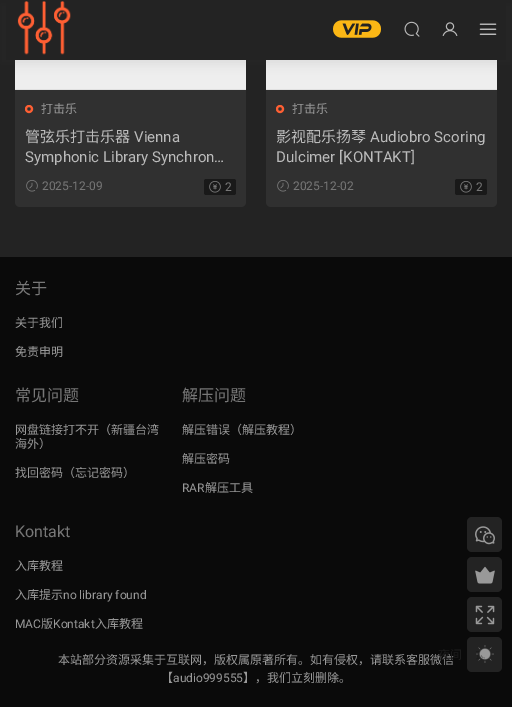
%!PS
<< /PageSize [512 707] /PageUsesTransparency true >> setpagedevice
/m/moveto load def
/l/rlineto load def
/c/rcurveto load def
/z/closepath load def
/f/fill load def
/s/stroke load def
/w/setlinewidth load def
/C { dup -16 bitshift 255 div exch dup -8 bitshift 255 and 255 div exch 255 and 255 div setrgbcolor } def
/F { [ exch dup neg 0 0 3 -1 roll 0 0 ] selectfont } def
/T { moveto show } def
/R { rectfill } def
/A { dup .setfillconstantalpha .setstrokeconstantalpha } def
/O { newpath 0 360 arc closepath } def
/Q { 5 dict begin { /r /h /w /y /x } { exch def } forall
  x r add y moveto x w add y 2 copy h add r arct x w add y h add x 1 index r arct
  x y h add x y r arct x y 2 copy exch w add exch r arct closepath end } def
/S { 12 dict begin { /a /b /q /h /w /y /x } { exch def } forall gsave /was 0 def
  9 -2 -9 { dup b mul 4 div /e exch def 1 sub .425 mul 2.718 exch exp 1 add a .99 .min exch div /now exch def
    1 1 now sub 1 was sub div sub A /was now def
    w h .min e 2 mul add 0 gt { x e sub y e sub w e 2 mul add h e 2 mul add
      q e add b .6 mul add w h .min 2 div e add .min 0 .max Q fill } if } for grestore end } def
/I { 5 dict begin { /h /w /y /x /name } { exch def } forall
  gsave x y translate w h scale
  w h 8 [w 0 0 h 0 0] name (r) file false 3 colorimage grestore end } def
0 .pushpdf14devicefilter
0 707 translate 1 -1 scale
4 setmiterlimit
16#232323 C
0 0 512 707 R
16#303030 C
15 -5 231 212 5 Q f
(6.rgb) 15 60 231 30 I
266 -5 231 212 5 Q f
(6.rgb) 266 60 231 30 I
16#404040 C
0 4 512 60 0 5 .1 S
16#232323 C
6 0 500 60 R
(1.rgb) 17 1 54 54 I
(2.rgb) 333 20 48 18 I
(3.rgb) 404 21 16 16 I
(4.rgb) 442 22 16 14 I
(5.rgb) 479 23 18 12 I
16#FF5F33 C
2 w
29 109 3 O s
/NotoSansCJKSC-Regular 12 F
16#999999 C
(打击乐) 41 113 T
/NotoSansCJKSC-Regular 15 F
16#BBBBBB C
(管弦乐打击乐器) 25 142 T
/Roboto-Regular 15 F
(Vienna) 134 142 T
(Symphonic Library Synchron…) 25 162 T
(7.rgb) 26 180 12 12 I
/Roboto-Regular 12 F
16#777777 C
(2025-12-09) 42 190 T
16#191919 C
206 179 m 16 0 l 0 16 l -16 0 l -1 0 -2 -1 -2 -2 c 0 -12 l 0 -1 1 -2 2 -2 c z f
(8.rgb) 209 181 12 12 I
222 179 m 12 0 l 1 0 2 1 2 2 c 0 12 l 0 1 -1 2 -2 2 c -12 0 l z f
16#777777 C
(2) 225 191 T
16#FF5F33 C
280 109 3 O s
/NotoSansCJKSC-Regular 12 F
16#999999 C
(打击乐) 292 113 T
/NotoSansCJKSC-Regular 15 F
16#BBBBBB C
(影视配乐扬琴) 276 142 T
/Roboto-Regular 15 F
(Audiobro Scoring) 370 142 T
(Dulcimer [KONTAKT]) 276 162 T
(7.rgb) 277 180 12 12 I
/Roboto-Regular 12 F
16#777777 C
(2025-12-02) 293 190 T
16#191919 C
457 179 m 16 0 l 0 16 l -16 0 l -1 0 -2 -1 -2 -2 c 0 -12 l 0 -1 1 -2 2 -2 c z f
(8.rgb) 460 181 12 12 I
473 179 m 12 0 l 1 0 2 1 2 2 c 0 12 l 0 1 -1 2 -2 2 c -12 0 l z f
16#777777 C
(2) 476 191 T
16#0A0A0A C
0 257 512 450 R
/NotoSansCJKSC-Regular 16 F
16#777777 C
(关于) 15 294 T
/NotoSansCJKSC-Regular 12 F
16#999999 C
(关于我们) 15 327 T
(免责申明) 15 356 T
/NotoSansCJKSC-Regular 16 F
16#777777 C
(常见问题) 15 401 T
/NotoSansCJKSC-Regular 12 F
16#999999 C
(网盘链接打不开（新疆台湾) 15 434 T
(海外）) 15 448 T
(找回密码（忘记密码）) 15 477 T
/NotoSansCJKSC-Regular 16 F
16#777777 C
(解压问题) 182 401 T
/NotoSansCJKSC-Regular 12 F
16#999999 C
(解压错误（解压教程）) 182 434 T
(解压密码) 182 463 T
/Roboto-Regular 12 F
(RAR) 182 492 T
/NotoSansCJKSC-Regular 12 F
(解压工具) 205 492 T
/Roboto-Regular 16 F
16#777777 C
(Kontakt) 15 537 T
/NotoSansCJKSC-Regular 12 F
16#999999 C
(入库教程) 15 570 T
(入库提示) 15 599 T
/Roboto-Regular 12 F
(no library found) 63 599 T
(MAC) 15 628 T
/NotoSansCJKSC-Regular 12 F
(版) 41 628 T
/Roboto-Regular 12 F
(Kontakt) 53 628 T
/NotoSansCJKSC-Regular 12 F
(入库教程) 95 628 T
(本站部分资源采集于互联网，版权属原著所有。如有侵权，请联系客服微信) 58 664 T
(【) 161 682 T
/Roboto-Regular 12 F
(audio999555) 173 682 T
/NotoSansCJKSC-Regular 12 F
(】，我们立刻删除。) 243 682 T
16#232323 C
467 517 35 35 5 Q f
(9.rgb) 475 526 20 19 I
467 557 35 35 5 Q f
(10.rgb) 475 566 20 18 I
467 597 35 35 5 Q f
(11.rgb) 475 605 20 20 I
467 637 35 35 5 Q f
16#1C1C1C C
(夜间) 438 659 T
(12.rgb) 476 645 18 18 I
.poppdf14devicefilter showpage
